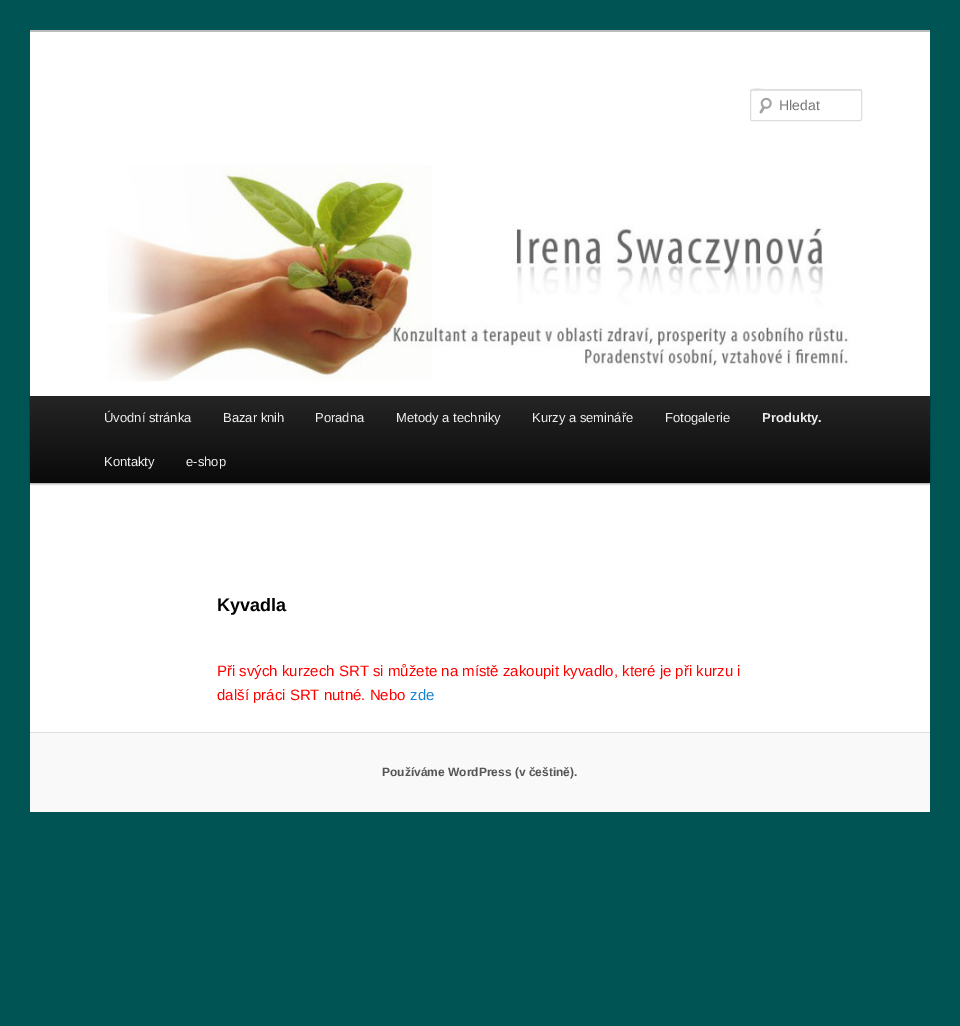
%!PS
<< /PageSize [960 1026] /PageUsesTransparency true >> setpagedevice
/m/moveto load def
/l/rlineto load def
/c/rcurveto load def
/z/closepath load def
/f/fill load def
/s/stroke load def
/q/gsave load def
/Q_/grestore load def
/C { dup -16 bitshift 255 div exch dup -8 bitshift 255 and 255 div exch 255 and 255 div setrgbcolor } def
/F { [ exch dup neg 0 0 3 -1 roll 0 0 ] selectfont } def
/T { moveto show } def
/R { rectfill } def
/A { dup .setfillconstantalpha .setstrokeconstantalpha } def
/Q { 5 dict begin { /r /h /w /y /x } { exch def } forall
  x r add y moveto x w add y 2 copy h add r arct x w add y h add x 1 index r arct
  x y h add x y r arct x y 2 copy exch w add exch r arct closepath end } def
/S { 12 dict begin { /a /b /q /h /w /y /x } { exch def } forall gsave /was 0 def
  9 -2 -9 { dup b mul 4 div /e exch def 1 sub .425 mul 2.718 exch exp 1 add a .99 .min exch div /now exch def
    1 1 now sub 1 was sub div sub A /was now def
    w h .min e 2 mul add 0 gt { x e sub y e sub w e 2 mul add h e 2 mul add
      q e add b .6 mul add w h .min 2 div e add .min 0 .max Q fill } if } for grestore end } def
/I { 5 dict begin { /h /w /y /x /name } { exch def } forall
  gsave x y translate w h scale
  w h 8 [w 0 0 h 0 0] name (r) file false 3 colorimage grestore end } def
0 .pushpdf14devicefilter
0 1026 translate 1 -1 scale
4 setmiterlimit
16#005454 C
0 0 960 1026 R
16#FFFFFF C
30 32 900 700 R
16#BBBBBB C
30 30 900 2 R
(1.rgb) 759 97 13 17 I
16#E6E6E6 C
752 91 m 109 0 l 0 1 l -1 -2 l -90 0 l -4 0 -19 -5 -19 2 c 0 -1 0 -1 1 -1 c z f
16#DDDDDD C
750.5 89.5 111 31 1.5 Q s
/LiberationSans-Regular 14 F
16#757575 C
(Hledat) 779 110 T
16#000000 C
30 397 900 87 0 1 .4 S
(2.rgb) 30 165 900 231 I
q 30 396 m 900 0 l 0 87 l -900 0 l z clip newpath
<< /ShadingType 2 /ColorSpace /DeviceRGB /Coords [480 396 480 483] /Extend [true true] /Function << /FunctionType 2 /Domain [0 1] /C0 [.145 .145 .145] /C1 [.039 .039 .039] /N 1 >> >> shfill Q_
/LiberationSans-Regular 13 F
16#EEEEEE C
(Úvodní stránka) 104 422 T
(Bazar knih) 223 422 T
(Poradna) 315 422 T
(Metody a techniky) 396 422 T
(Kurzy a semináře) 532 422 T
(Fotogalerie) 665 422 T
/LiberationSans-Bold 13 F
(Produkty.) 762 422 T
/LiberationSans-Regular 13 F
(Kontakty) 104 466 T
(e-shop) 186 466 T
/LiberationSans-Bold 18 F
16#000000 C
(Kyvadla) 217 611 T
/LiberationSans-Regular 15 F
16#FF0000 C
(Při svých kurzech SRT si můžete na místě zakoupit kyvadlo, které je při kurzu i) 217 676 T
(další práci SRT nutné. Nebo) 217 700 T
16#1982D1 C
(zde) 410 700 T
16#F9F9F9 C
30 733 900 79 R
16#DDDDDD C
30 732 900 1 R
/LiberationSans-Bold 12 F
16#555555 C
(Používáme WordPress \(v češtině\).) 382 776 T
.poppdf14devicefilter showpage
